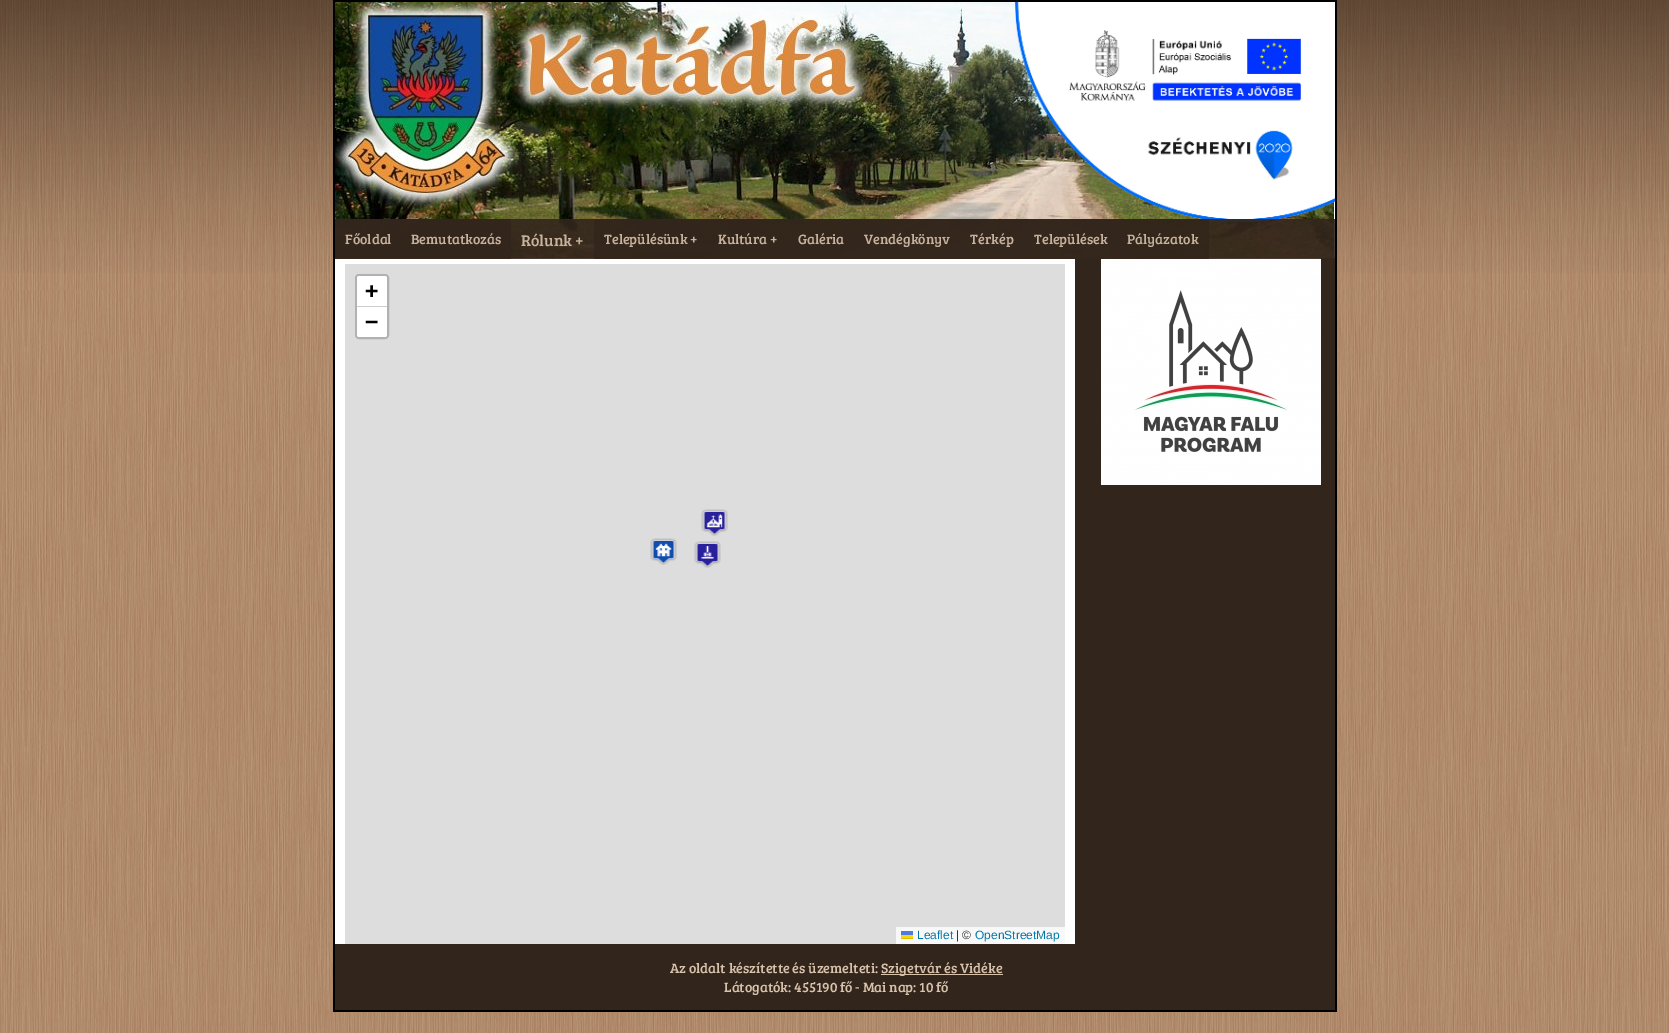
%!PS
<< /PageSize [1669 1033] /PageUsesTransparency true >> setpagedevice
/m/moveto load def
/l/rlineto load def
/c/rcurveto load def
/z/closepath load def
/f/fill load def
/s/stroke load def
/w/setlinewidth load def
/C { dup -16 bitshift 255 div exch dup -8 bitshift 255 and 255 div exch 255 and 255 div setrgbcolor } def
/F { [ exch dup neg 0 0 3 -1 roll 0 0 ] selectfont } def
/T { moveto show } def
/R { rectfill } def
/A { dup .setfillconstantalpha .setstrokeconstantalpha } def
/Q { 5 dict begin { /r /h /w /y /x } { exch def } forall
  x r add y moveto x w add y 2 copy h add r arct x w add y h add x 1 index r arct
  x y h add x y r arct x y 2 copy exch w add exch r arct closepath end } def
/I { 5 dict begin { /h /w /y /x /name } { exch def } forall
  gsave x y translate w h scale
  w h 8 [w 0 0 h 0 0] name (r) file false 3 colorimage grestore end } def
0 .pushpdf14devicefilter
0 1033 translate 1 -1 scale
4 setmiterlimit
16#FFFFFF C
0 0 1669 1033 R
(1.rgb) 0 0 1669 1033 I
(2.rgb) 0 0 1669 273 I
1334 2 1 256 R
(3.rgb) 335 2 999 256 I
16#000000 C
333 0 1004 2 R
1335 0 2 258 R
333 0 2 258 R
(4.rgb) 1015 2 320 220 I
16#32251B C
1075 258 260 686 R
16#FFFFFF C
335 258 740 686 R
(8.rgb) 1101 258 220 227 I
0.9 A
16#32251B C
335 219 1000 40 R
335 219 66 40 R
/BreeSerif-Regular 14 F
1 A
16#C7B29D C
(Főoldal) 345 244 T
0.9 A
16#32251B C
401 219 110 40 R
1 A
16#C7B29D C
(Bemutatkozás) 411 244 T
/BreeSerif-Regular 16 F
(Rólunk +) 521 246 T
0.9 A
16#32251B C
594 219 114 40 R
/BreeSerif-Regular 14 F
1 A
16#C7B29D C
(Településünk +) 604 244 T
0.9 A
16#32251B C
708 219 80 40 R
1 A
16#C7B29D C
(Kultúra +) 718 244 T
0.9 A
16#32251B C
788 219 66 40 R
1 A
16#C7B29D C
(Galéria) 798 244 T
0.9 A
16#32251B C
854 219 106 40 R
1 A
16#C7B29D C
(Vendégkönyv) 864 244 T
0.9 A
16#32251B C
960 219 64 40 R
1 A
16#C7B29D C
(Térkép) 970 244 T
0.9 A
16#32251B C
1024 219 93 40 R
1 A
16#C7B29D C
(Települések) 1034 244 T
0.9 A
16#32251B C
1117 219 92 40 R
1 A
16#C7B29D C
(Pályázatok) 1127 244 T
16#000000 C
1335 258 2 754 R
333 258 2 686 R
16#DDDDDD C
345 264 720 680 R
16#B1B1B1 C
2 w
356 275 32 63 3 Q s
16#FFFFFF C
359 276 m 26 0 l 1 0 2 1 2 2 c 0 29 l -30 0 l 0 -29 l 0 -1 1 -2 2 -2 c z f
16#CCCCCC C
357 306 30 1 R
/DejaVuSansMono-Bold 22 F
16#000000 C
(+) 365 298 T
16#FFFFFF C
357 307 m 30 0 l 0 28 l 0 1 -1 2 -2 2 c -26 0 l -1 0 -2 -1 -2 -2 c z f
16#000000 C
(−) 365 329 T
16#F8F8F8 C
896 927 169 17 R
/LiberationSans-Regular 12 F
16#0078A8 C
(Leaflet) 917 939 T
16#4C7BE1 C
901 931 12 4 R
16#FFD500 C
901 935 12 3 R
16#E0BC00 C
901 938 12 1 R
16#333333 C
(| ©) 956 939 T
16#0078A8 C
(OpenStreetMap) 975 939 T
(5.rgb) 701 509 27 27 I
(6.rgb) 650 538 27 27 I
(7.rgb) 694 541 27 27 I
16#32251B C
335 944 1000 66 R
16#000000 C
333 1010 1004 2 R
333 944 2 68 R
/BreeSerif-Regular 14 F
16#D8C2AB C
(Az oldalt készítette és üzemelteti:) 670 973 T
881 974 122 1 R
(Szigetvár és Vidéke) 881 973 T
(Látogatók: 455190 fő - Mai nap: 10 fő) 724 992 T
.poppdf14devicefilter showpage
